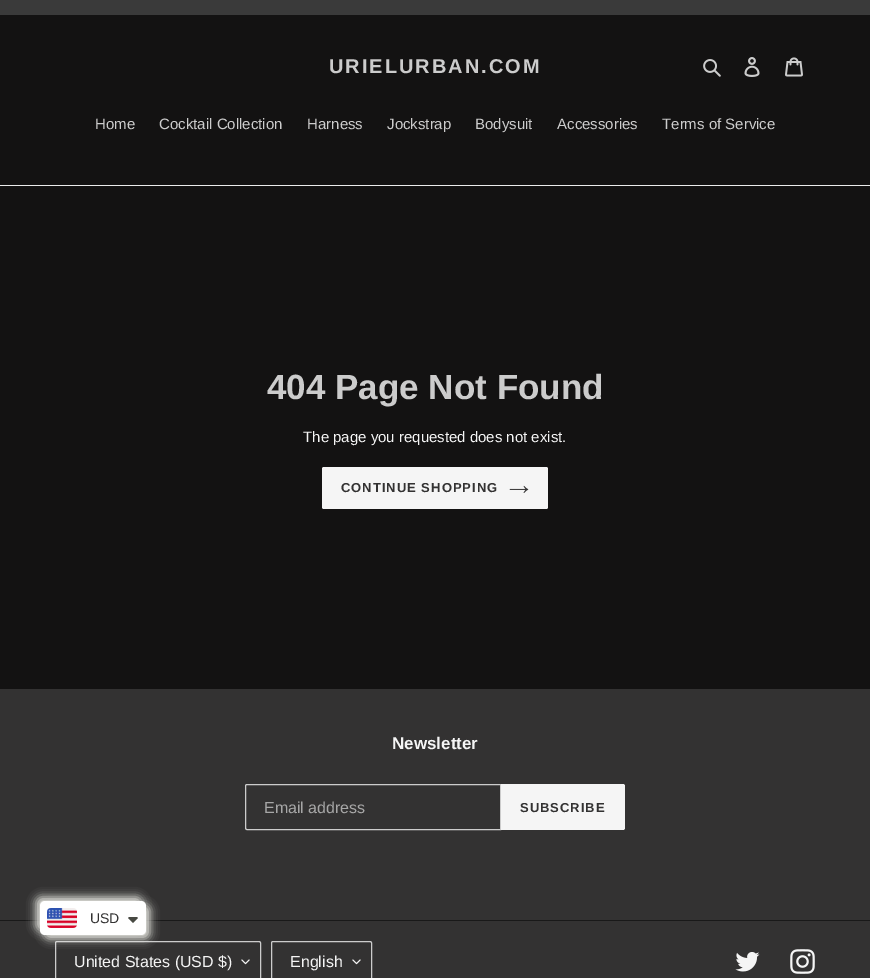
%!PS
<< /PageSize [870 978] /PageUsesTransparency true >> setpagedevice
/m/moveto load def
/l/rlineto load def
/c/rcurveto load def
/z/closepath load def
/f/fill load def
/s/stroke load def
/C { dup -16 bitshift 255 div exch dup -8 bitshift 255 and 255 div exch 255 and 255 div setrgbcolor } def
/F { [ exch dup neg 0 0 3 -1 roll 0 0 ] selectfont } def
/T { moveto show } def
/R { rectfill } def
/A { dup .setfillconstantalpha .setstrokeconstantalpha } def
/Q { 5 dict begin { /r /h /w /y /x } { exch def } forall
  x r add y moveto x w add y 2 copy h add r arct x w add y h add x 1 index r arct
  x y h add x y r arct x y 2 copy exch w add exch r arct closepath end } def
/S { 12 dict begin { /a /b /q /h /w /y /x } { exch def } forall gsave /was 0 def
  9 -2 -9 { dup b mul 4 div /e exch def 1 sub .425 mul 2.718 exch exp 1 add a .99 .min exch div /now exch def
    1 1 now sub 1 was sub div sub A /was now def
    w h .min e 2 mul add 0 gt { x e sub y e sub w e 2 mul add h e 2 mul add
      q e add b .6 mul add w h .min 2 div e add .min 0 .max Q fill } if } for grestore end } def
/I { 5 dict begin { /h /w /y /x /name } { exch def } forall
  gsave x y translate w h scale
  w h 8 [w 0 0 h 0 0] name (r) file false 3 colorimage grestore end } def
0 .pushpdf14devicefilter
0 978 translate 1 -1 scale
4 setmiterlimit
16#131212 C
0 0 870 978 R
16#3A3A3A C
0 0 870 15 R
/LiberationSans-Bold 20 F
16#CCCCCC C
329 73 m 2 0 (URIELURBAN.COM) ashow
(1.rgb) 703 59 18 18 I
(2.rgb) 744 57 16 20 I
(3.rgb) 785 57 18 20 I
16#EBEBEB C
0 185 870 1 R
/LiberationSans-Regular 15 F
16#CCCCCC C
(Home) 95 129 T
(Cocktail Collection) 159 129 T
(Harness) 307 129 T
(Jockstrap) 387 129 T
(Bodysuit) 475 129 T
(Accessories) 557 129 T
(Terms of Service) 662 129 T
/LiberationSans-Bold 35 F
(404 Page Not Found) 267 399 T
/LiberationSans-Regular 15 F
16#F5F5F5 C
(The page you requested does not exist.) 303 442 T
322 467 226 42 2 Q f
/LiberationSans-Bold 13 F
16#333232 C
341 492 m 1 0 (CONTINUE SHOPPING) ashow
(4.rgb) 509 485 20 8 I
0 689 870 289 R
/LiberationSans-Bold 17 F
16#F5F5F5 C
(Newsletter) 392 749 T
16#CCCCCC C
247 784.5 m 253.5 0 l 0 45 l -253.5 0 l -1 0 -1.5 -.5 -1.5 -1.5 c 0 -42 l 0 -1 .5 -1.5 1.5 -1.5 c z s
/LiberationSans-Regular 16 F
16#A7A7A7 C
(Email address) 264 813 T
16#F5F5F5 C
501 784 m 122 0 l 1 0 2 1 2 2 c 0 42 l 0 1 -1 2 -2 2 c -122 0 l z f
/LiberationSans-Bold 13 F
16#333232 C
520 812 m 1 0 (SUBSCRIBE) ashow
16#191919 C
0 920 870 1 R
(5.rgb) 241 959 9 6 I
16#CCCCCC C
55.5 941.5 205 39 1.5 Q s
/LiberationSans-Regular 16 F
16#F5F5F5 C
(United States \(USD $\)) 74 967 T
(5.rgb) 352 959 9 6 I
16#CCCCCC C
271.5 941.5 100 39 1.5 Q s
16#F5F5F5 C
(English) 290 967 T
(6.rgb) 735 952 25 20 I
(7.rgb) 790 949 25 25 I
16#E8E8E2 C
36 897 106 34 5 4.5 1 S
44 905 106 34 5 4.5 1 S
16#FFFFFF C
40 901 106 34 5 Q f
(8.rgb) 47 908 30 20 I
/LiberationSans-Regular 14 F
16#333232 C
(USD) 90 923 T
16#474942 C
130 917 m -1 0 -1.5 .5 -2 1 c 5 5 l 5 -5 l -1 -1 l z f
.poppdf14devicefilter showpage
